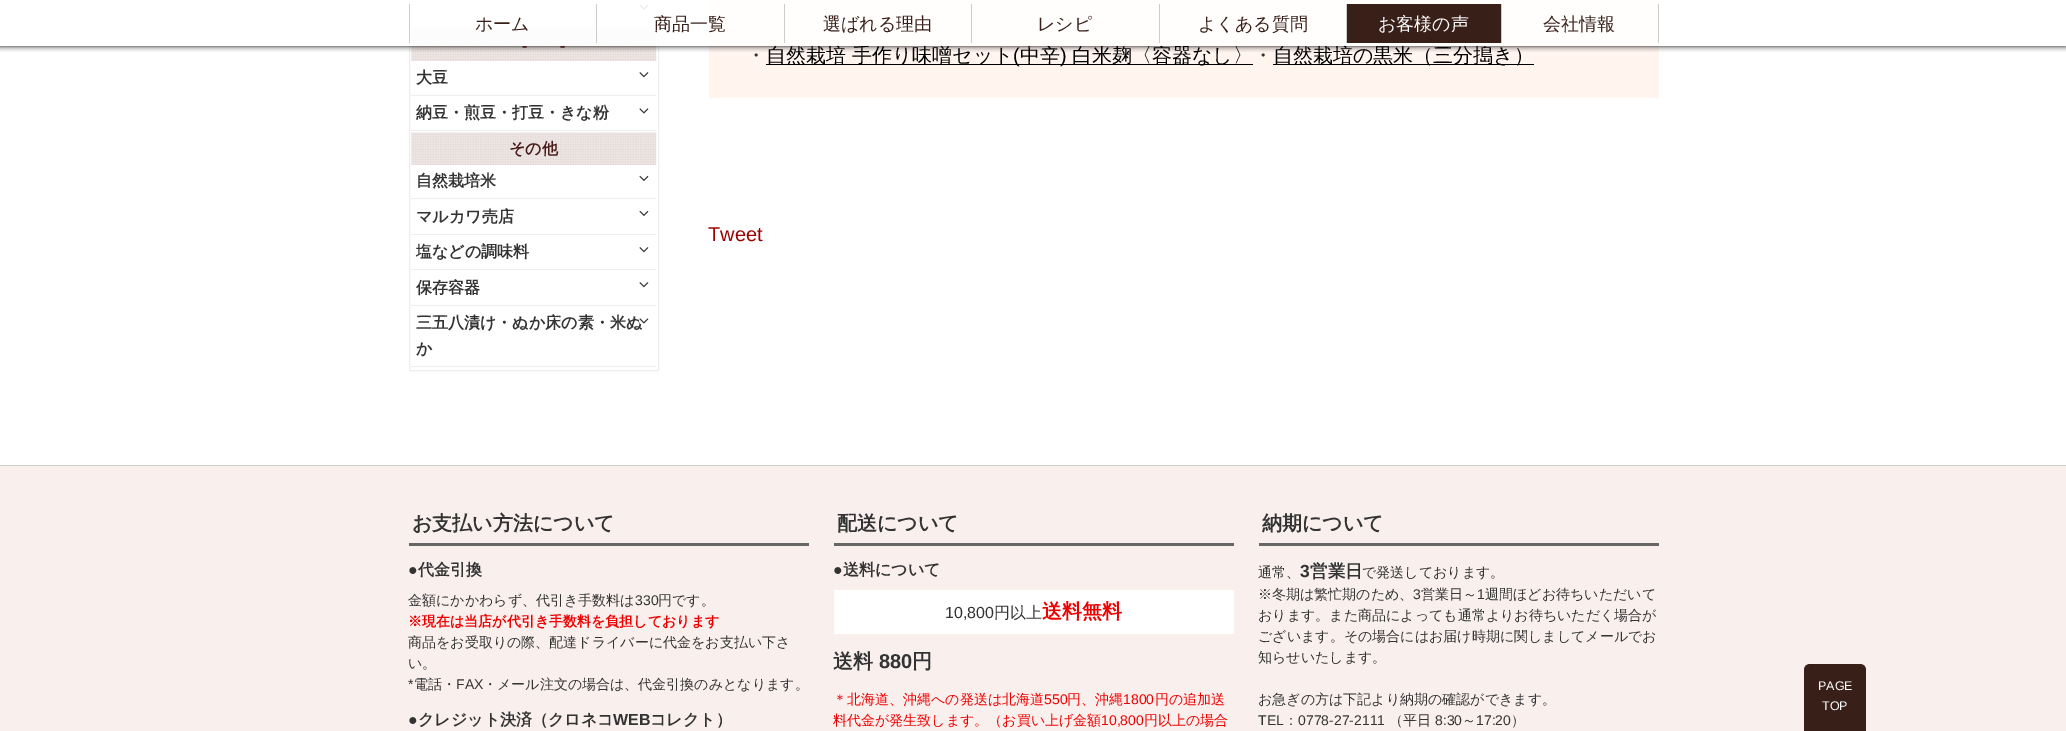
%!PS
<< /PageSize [2066 731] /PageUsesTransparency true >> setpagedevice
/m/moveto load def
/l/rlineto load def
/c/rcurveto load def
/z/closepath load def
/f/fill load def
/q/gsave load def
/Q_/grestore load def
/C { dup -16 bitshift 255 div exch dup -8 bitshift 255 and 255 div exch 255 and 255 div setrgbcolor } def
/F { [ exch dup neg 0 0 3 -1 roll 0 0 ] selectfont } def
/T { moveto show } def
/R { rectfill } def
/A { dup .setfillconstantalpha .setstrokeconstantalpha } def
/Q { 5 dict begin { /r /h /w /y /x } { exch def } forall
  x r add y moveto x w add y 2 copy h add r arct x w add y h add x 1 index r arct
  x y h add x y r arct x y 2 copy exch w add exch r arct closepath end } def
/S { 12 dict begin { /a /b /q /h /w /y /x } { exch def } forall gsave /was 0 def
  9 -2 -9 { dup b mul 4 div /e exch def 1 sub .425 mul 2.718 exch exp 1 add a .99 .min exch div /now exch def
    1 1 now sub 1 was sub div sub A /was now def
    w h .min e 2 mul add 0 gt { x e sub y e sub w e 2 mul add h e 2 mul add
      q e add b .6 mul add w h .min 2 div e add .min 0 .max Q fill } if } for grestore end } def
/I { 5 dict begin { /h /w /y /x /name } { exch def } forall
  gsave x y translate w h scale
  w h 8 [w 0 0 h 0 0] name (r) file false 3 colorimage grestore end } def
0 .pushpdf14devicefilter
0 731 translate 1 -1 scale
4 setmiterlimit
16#FFFFFF C
0 0 2066 731 R
16#EEEEEE C
409.5 -.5 249 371 rectstroke
411 28 245 1 R
(1.rgb) 639 4 10 6 I
(2.rgb) 411 30 246 32 I
16#FFF4EE C
709 0 950 98 R
q
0 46 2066 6 rectclip
16#000000 C
0 0 2066 46 0 3 1 S
Q_
/LiberationSans-Bold 16 F
16#491B1B C
(-) 522 51 T
(-) 560 51 T
16#000000 C
766 64 487 1 R
/WenQuanYiZenHei-Medium 20 F
(自然栽培 手作り味噌セット) 766 62 T
(中辛) 1020 62 T
(白米麹〈容器なし〉) 1072 62 T
1273 64 261 1 R
(自然栽培の黒米（三分搗き）) 1273 62 T
0.9 A
16#FFFFFF C
409 0 1250 46 R
1 A
16#CCCCCC C
1658 4 1 39 R
409 4 1 39 R
/WenQuanYiZenHei-Medium 18 F
16#381F18 C
(ホーム) 475 30 T
16#CCCCCC C
596 4 1 39 R
16#381F18 C
(商品一覧) 654 30 T
16#CCCCCC C
784 4 1 39 R
16#381F18 C
(選ばれる理由) 823 30 T
16#CCCCCC C
971 4 1 39 R
16#381F18 C
(レシピ) 1037 30 T
16#CCCCCC C
1159 4 1 39 R
16#381F18 C
(よくある質問) 1198 30 T
1347 4 154 39 R
16#CCCCCC C
1346 4 1 39 R
16#FFFFFF C
(お客様の声) 1378 30 T
16#CCCCCC C
1501 4 1 39 R
16#381F18 C
(会社情報) 1543 30 T
16#FFFFFF C
411 61 245 1 R
16#EEEEEE C
411 95 245 1 R
/WenQuanYiZenHei-Bold 16 F
16#333333 C
(大豆) 416 83 T
(3.rgb) 639 72 10 6 I
16#EEEEEE C
411 130 245 1 R
16#333333 C
(納豆・煎豆・打豆・きな粉) 416 118 T
(4.rgb) 639 108 10 6 I
(5.rgb) 411 132 246 33 I
16#491B1B C
(その他) 509 154 T
16#EEEEEE C
411 198 245 1 R
16#333333 C
(自然栽培米) 416 186 T
(6.rgb) 639 175 10 6 I
16#EEEEEE C
411 234 245 1 R
16#333333 C
(マルカワ売店) 416 222 T
(6.rgb) 639 210 10 6 I
16#EEEEEE C
411 269 245 1 R
16#333333 C
(塩などの調味料) 416 257 T
(3.rgb) 639 247 10 6 I
16#EEEEEE C
411 305 245 1 R
16#333333 C
(保存容器) 416 293 T
(3.rgb) 639 282 10 6 I
16#EEEEEE C
411 366 245 1 R
16#333333 C
(三五八漬け・ぬか床の素・米ぬ) 416 328 T
(7.rgb) 639 318 10 6 I
(か) 416 354 T
/WenQuanYiZenHei-Medium 20 F
(・) 746 62 T
/LiberationSans-Regular 20 F
16#000000 C
(\() 1013 62 T
(\)) 1060 62 T
/WenQuanYiZenHei-Medium 20 F
16#333333 C
(・) 1253 62 T
/LiberationSans-Regular 20 F
16#990000 C
(Tweet) 708 241 T
16#CCCCCC C
0 465 2066 1 R
16#F9F0EE C
0 466 2066 265 R
16#666666 C
409 543 400 3 R
/WenQuanYiZenHei-Bold 20 F
16#333333 C
(お支払い方法について) 412 530 T
/LiberationSans-Bold 16 F
(●) 408 575 T
/WenQuanYiZenHei-Bold 16 F
(代金引換) 418 575 T
/WenQuanYiZenHei-Medium 14 F
(金額にかかわらず、代引き手数料は) 408 605 T
/LiberationSans-Regular 14 F
(330) 635 605 T
/WenQuanYiZenHei-Medium 14 F
(円です。) 658 605 T
/WenQuanYiZenHei-Bold 14 F
16#EE0000 C
(※現在は当店が代引き手数料を負担しております) 408 626 T
/WenQuanYiZenHei-Medium 14 F
16#333333 C
(商品をお受取りの際、配達ドライバーに代金をお支払い下さ) 408 647 T
(い。) 408 668 T
/LiberationSans-Regular 14 F
(*) 408 689 T
/WenQuanYiZenHei-Medium 14 F
(電話・) 414 689 T
/LiberationSans-Regular 14 F
(FAX) 456 689 T
/WenQuanYiZenHei-Medium 14 F
(・メール注文の場合は、代金引換のみとなります。) 483 689 T
/LiberationSans-Bold 16 F
(●) 408 725 T
/WenQuanYiZenHei-Bold 16 F
(クレジット決済（クロネコ) 418 725 T
/LiberationSans-Bold 16 F
(WEB) 613 725 T
/WenQuanYiZenHei-Bold 16 F
(コレクト）) 650 725 T
16#666666 C
834 543 400 3 R
/WenQuanYiZenHei-Bold 20 F
16#333333 C
(配送について) 837 530 T
/LiberationSans-Bold 16 F
(●) 833 575 T
/WenQuanYiZenHei-Bold 16 F
(送料について) 843 575 T
16#FFFFFF C
834 590 400 44 R
/LiberationSans-Regular 16 F
16#333333 C
(10,800) 945 618 T
/WenQuanYiZenHei-Medium 16 F
(円以上) 994 618 T
/WenQuanYiZenHei-Bold 20 F
16#EE0000 C
(送料無料) 1042 618 T
16#333333 C
(送料) 833 668 T
/LiberationSans-Bold 20 F
(880) 879 668 T
/WenQuanYiZenHei-Bold 20 F
(円) 912 668 T
/WenQuanYiZenHei-Medium 14 F
16#EE0000 C
(＊北海道、沖縄への発送は北海道) 833 704 T
/LiberationSans-Regular 14 F
(550) 1044 704 T
/WenQuanYiZenHei-Medium 14 F
(円、沖縄) 1067 704 T
/LiberationSans-Regular 14 F
(1800) 1123 704 T
/WenQuanYiZenHei-Medium 14 F
(円の追加送) 1155 704 T
(料代金が発生致します。（お買い上げ金額) 833 725 T
/LiberationSans-Regular 14 F
(10,800) 1101 725 T
/WenQuanYiZenHei-Medium 14 F
(円以上の場合) 1144 725 T
16#666666 C
1259 543 400 3 R
/WenQuanYiZenHei-Bold 20 F
16#333333 C
(納期について) 1262 530 T
/WenQuanYiZenHei-Medium 14 F
(通常、) 1258 577 T
/LiberationSans-Bold 17.5 F
(3) 1300 577 T
/WenQuanYiZenHei-Bold 17.5 F
(営業日) 1310 577 T
/WenQuanYiZenHei-Medium 14 F
(で発送しております。) 1362 577 T
(※冬期は繁忙期のため、) 1258 599 T
/LiberationSans-Regular 14 F
(3) 1413 599 T
/WenQuanYiZenHei-Medium 14 F
(営業日～) 1421 599 T
/LiberationSans-Regular 14 F
(1) 1477 599 T
/WenQuanYiZenHei-Medium 14 F
(週間ほどお待ちいただいて) 1485 599 T
(おります。また商品によっても通常よりお待ちいただく場合が) 1258 620 T
(ございます。その場合にはお届け時期に関しましてメールでお) 1258 641 T
(知らせいたします。) 1258 662 T
(お急ぎの方は下記より納期の確認ができます。) 1258 704 T
/LiberationSans-Regular 14 F
(TEL) 1258 725 T
/WenQuanYiZenHei-Medium 14 F
(：) 1284 725 T
/LiberationSans-Regular 14 F
(0778-27-2111) 1298 725 T
/WenQuanYiZenHei-Medium 14 F
(（平日) 1389 725 T
/LiberationSans-Regular 14 F
(8:30) 1435 725 T
/WenQuanYiZenHei-Medium 14 F
(～) 1462 725 T
/LiberationSans-Regular 14 F
(17:20) 1476 725 T
/WenQuanYiZenHei-Medium 14 F
(）) 1511 725 T
16#381F18 C
1810 664 m 50 0 l 3.5 0 6 2.5 6 6 c 0 61 l -62 0 l 0 -61 l 0 -3.5 2.5 -6 6 -6 c z f
/LiberationSans-Regular 12.5 F
16#FFFFFF C
(PAGE) 1818 690 T
(TOP) 1822 710 T
.poppdf14devicefilter showpage
